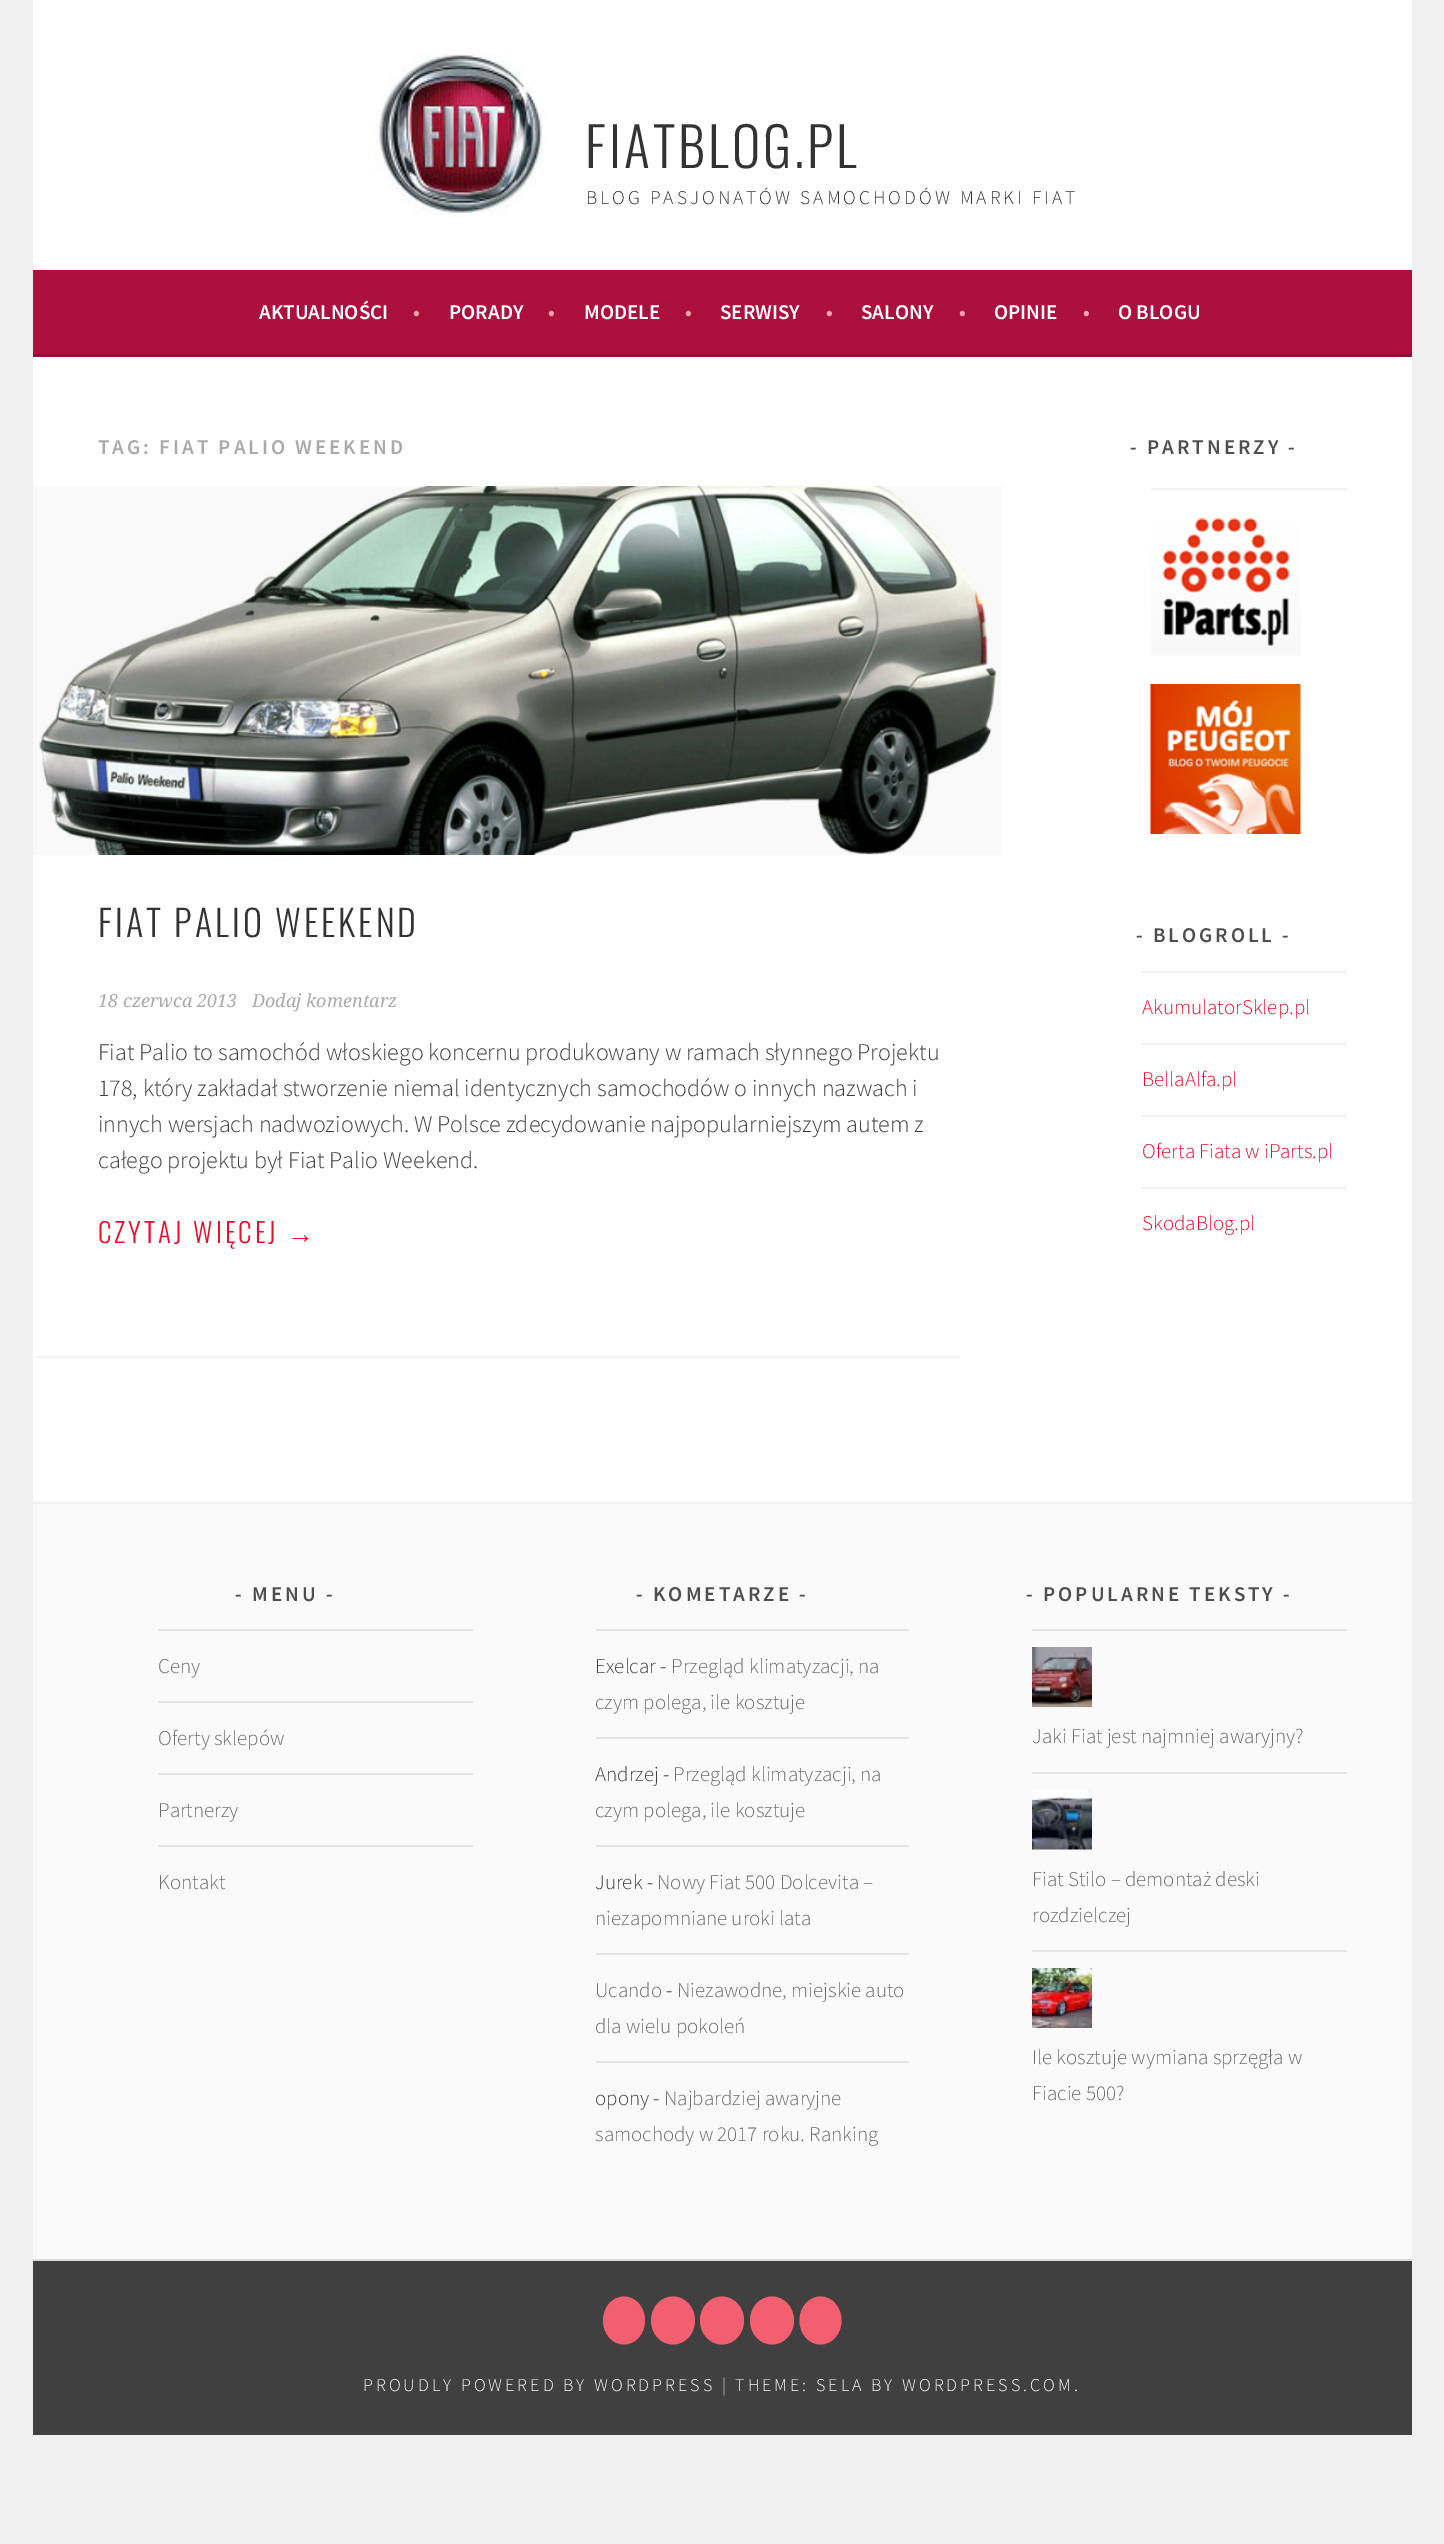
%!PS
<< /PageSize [1444 2544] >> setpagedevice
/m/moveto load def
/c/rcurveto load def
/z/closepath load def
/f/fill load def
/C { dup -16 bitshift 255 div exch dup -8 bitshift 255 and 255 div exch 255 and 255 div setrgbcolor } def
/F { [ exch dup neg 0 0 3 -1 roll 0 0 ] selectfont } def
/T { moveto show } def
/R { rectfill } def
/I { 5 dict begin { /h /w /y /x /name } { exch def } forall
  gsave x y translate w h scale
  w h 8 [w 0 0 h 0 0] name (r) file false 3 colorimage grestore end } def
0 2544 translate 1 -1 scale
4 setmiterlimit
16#F0F0F0 C
0 0 1444 2544 R
16#FFFFFF C
33 0 1379 270 R
(1.rgb) 374 54 171 162 I
/Oswald-Light 54 F
16#333333 C
585 168 m 3 0 (FIATBLOG.PL) ashow
/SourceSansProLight-Light 19.5 F
586 204 m 3 0 (BLOG PASJONATÓW SAMOCHODÓW MARKI FIAT) ashow
16#AC113D C
33 270 1379 84 R
16#920E34 C
33 354 1379 3 R
/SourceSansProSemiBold-SemiBold 21 F
16#FFFFFF C
(AKTUALNOŚCI) 259 319 T
16#FFA4AD C
(•) 413 319 T
16#FFFFFF C
(PORADY) 449 319 T
16#FFA4AD C
(•) 548 319 T
16#FFFFFF C
(MODELE) 584 319 T
16#FFA4AD C
(•) 685 319 T
16#FFFFFF C
(SERWISY) 720 319 T
16#FFA4AD C
(•) 826 319 T
16#FFFFFF C
(SALONY) 861 319 T
16#FFA4AD C
(•) 959 319 T
16#FFFFFF C
(OPINIE) 994 319 T
16#FFA4AD C
(•) 1083 319 T
16#FFFFFF C
(O BLOGU) 1118 319 T
33 357 1379 1145 R
16#AAAAAA C
98 454 m 3 0 (TAG: FIAT PALIO WEEKEND) ashow
16#F8F9F8 C
33 486 969 369 R
(2.rgb) 39 486 958 369 I
/Oswald-Light 36 F
16#333333 C
98 937 m 3 0 (FIAT PALIO WEEKEND) ashow
/DroidSerif-Italic 18 F
16#AAAAAA C
(18 czerwca 2013) 98 1007 T
(Dodaj komentarz) 252 1007 T
/SourceSansProLight-Light 24 F
16#404040 C
(Fiat Palio to samochód włoskiego koncernu produkowany w ramach słynnego Projektu) 98 1060 T
(178, który zakładał stworzenie niemal identycznych samochodów o innych nazwach i) 98 1096 T
(innych wersjach nadwoziowych. W Polsce zdecydowanie najpopularniejszym autem z) 98 1132 T
(całego projektu był Fiat Palio Weekend.) 98 1168 T
/Oswald-Light 27 F
16#E1122A C
98 1243 m 3 0 (CZYTAJ WIĘCEJ) ashow
/LiberationSans-Regular 27 F
287 1243 m 3 0 (→) ashow
16#F2F2F2 C
36 1356 924 2 R
/SourceSansProSemiBold-SemiBold 21 F
16#4F4F4F C
1130 454 m 3 0 (- PARTNERZY -) ashow
16#F2F2F2 C
1151 488 196 2 R
(3.rgb) 1150 684 151 150 I
(4.rgb) 1150 517 151 139 I
16#4F4F4F C
1136 942 m 3 0 (- BLOGROLL -) ashow
16#F2F2F2 C
1142 971 205 2 R
/SourceSansProLight-Light 21 F
16#E1122A C
(AkumulatorSklep.pl) 1142 1014 T
16#F2F2F2 C
1142 1043 205 2 R
16#E1122A C
(BellaAlfa.pl) 1142 1086 T
16#F2F2F2 C
1142 1115 205 2 R
16#E1122A C
(Oferta Fiata w iParts.pl) 1142 1158 T
16#F2F2F2 C
1142 1187 205 2 R
16#E1122A C
(SkodaBlog.pl) 1142 1230 T
16#FAFAFA C
33 1504 1379 755 R
/SourceSansProSemiBold-SemiBold 21 F
16#4F4F4F C
235 1601 m 3 0 (- MENU -) ashow
16#E5E5E5 C
158 1629 315 2 R
/SourceSansProLight-Light 21 F
16#6D6D6D C
(Ceny) 158 1673 T
16#E5E5E5 C
158 1701 315 2 R
16#6D6D6D C
(Oferty sklepów) 158 1745 T
16#E5E5E5 C
158 1773 315 2 R
16#6D6D6D C
(Partnerzy) 158 1817 T
16#E5E5E5 C
158 1845 315 2 R
16#6D6D6D C
(Kontakt) 158 1889 T
/SourceSansProSemiBold-SemiBold 21 F
16#4F4F4F C
636 1601 m 3 0 (- KOMETARZE -) ashow
16#E5E5E5 C
596 1629 313 2 R
/SourceSansProLight-Light 21 F
16#404040 C
(Exelcar -) 595 1673 T
16#6D6D6D C
(Przegląd klimatyzacji, na) 671 1673 T
(czym polega, ile kosztuje) 595 1709 T
16#E5E5E5 C
596 1737 313 2 R
16#404040 C
(Andrzej -) 595 1781 T
16#6D6D6D C
(Przegląd klimatyzacji, na) 673 1781 T
(czym polega, ile kosztuje) 595 1817 T
16#E5E5E5 C
596 1845 313 2 R
16#404040 C
(Jurek -) 595 1889 T
16#6D6D6D C
(Nowy Fiat 500 Dolcevita –) 657 1889 T
(niezapomniane uroki lata) 595 1925 T
16#E5E5E5 C
596 1953 313 2 R
16#6D6D6D C
(Ucando) 595 1997 T
16#404040 C
(-) 666 1997 T
16#6D6D6D C
(Niezawodne, miejskie auto) 677 1997 T
(dla wielu pokoleń) 595 2033 T
16#E5E5E5 C
596 2061 313 2 R
16#404040 C
(opony -) 595 2105 T
16#6D6D6D C
(Najbardziej awaryjne) 664 2105 T
(samochody w 2017 roku. Ranking) 595 2141 T
/SourceSansProSemiBold-SemiBold 21 F
16#4F4F4F C
1026 1601 m 3 0 (- POPULARNE TEKSTY -) ashow
16#E5E5E5 C
1032 1629 315 2 R
(5.rgb) 1032 1647 60 60 I
/SourceSansProLight-Light 21 F
16#6D6D6D C
(Jaki Fiat jest najmniej awaryjny?) 1032 1743 T
16#E5E5E5 C
1032 1772 315 2 R
(6.rgb) 1032 1789 60 61 I
16#6D6D6D C
(Fiat Stilo – demontaż deski) 1032 1886 T
(rozdzielczej) 1032 1922 T
16#E5E5E5 C
1032 1950 315 2 R
(7.rgb) 1032 1968 60 60 I
16#6D6D6D C
(Ile kosztuje wymiana sprzęgła w) 1032 2064 T
(Fiacie 500?) 1032 2100 T
16#404040 C
33 2261 1379 174 R
16#D9D9D9 C
33 2259 1379 2 R
16#F25F70 C
624 2296.5 m 11.5 0 21 10.5 21 24 c 0 13.5 -9.5 24 -21 24 c -11.5 0 -21 -10.5 -21 -24 c 0 -13.5 9.5 -24 21 -24 c z f
673 2296.5 m 12 0 22 10.5 22 24 c 0 13.5 -10 24 -22 24 c -12 0 -22 -10.5 -22 -24 c 0 -13.5 10 -24 22 -24 c z f
722 2296.5 m 12 0 22 10.5 22 24 c 0 13.5 -10 24 -22 24 c -12 0 -22 -10.5 -22 -24 c 0 -13.5 10 -24 22 -24 c z f
772 2296.5 m 12 0 22 10.5 22 24 c 0 13.5 -10 24 -22 24 c -12 0 -22 -10.5 -22 -24 c 0 -13.5 10 -24 22 -24 c z f
820.5 2296.5 m 11.5 0 21 10.5 21 24 c 0 13.5 -9.5 24 -21 24 c -11.5 0 -21 -10.5 -21 -24 c 0 -13.5 9.5 -24 21 -24 c z f
/SourceSansProLight-Light 18 F
16#FFFFFF C
363 2391 m 3 0 (PROUDLY POWERED BY WORDPRESS | THEME: SELA BY WORDPRESS.COM.) ashow
showpage
